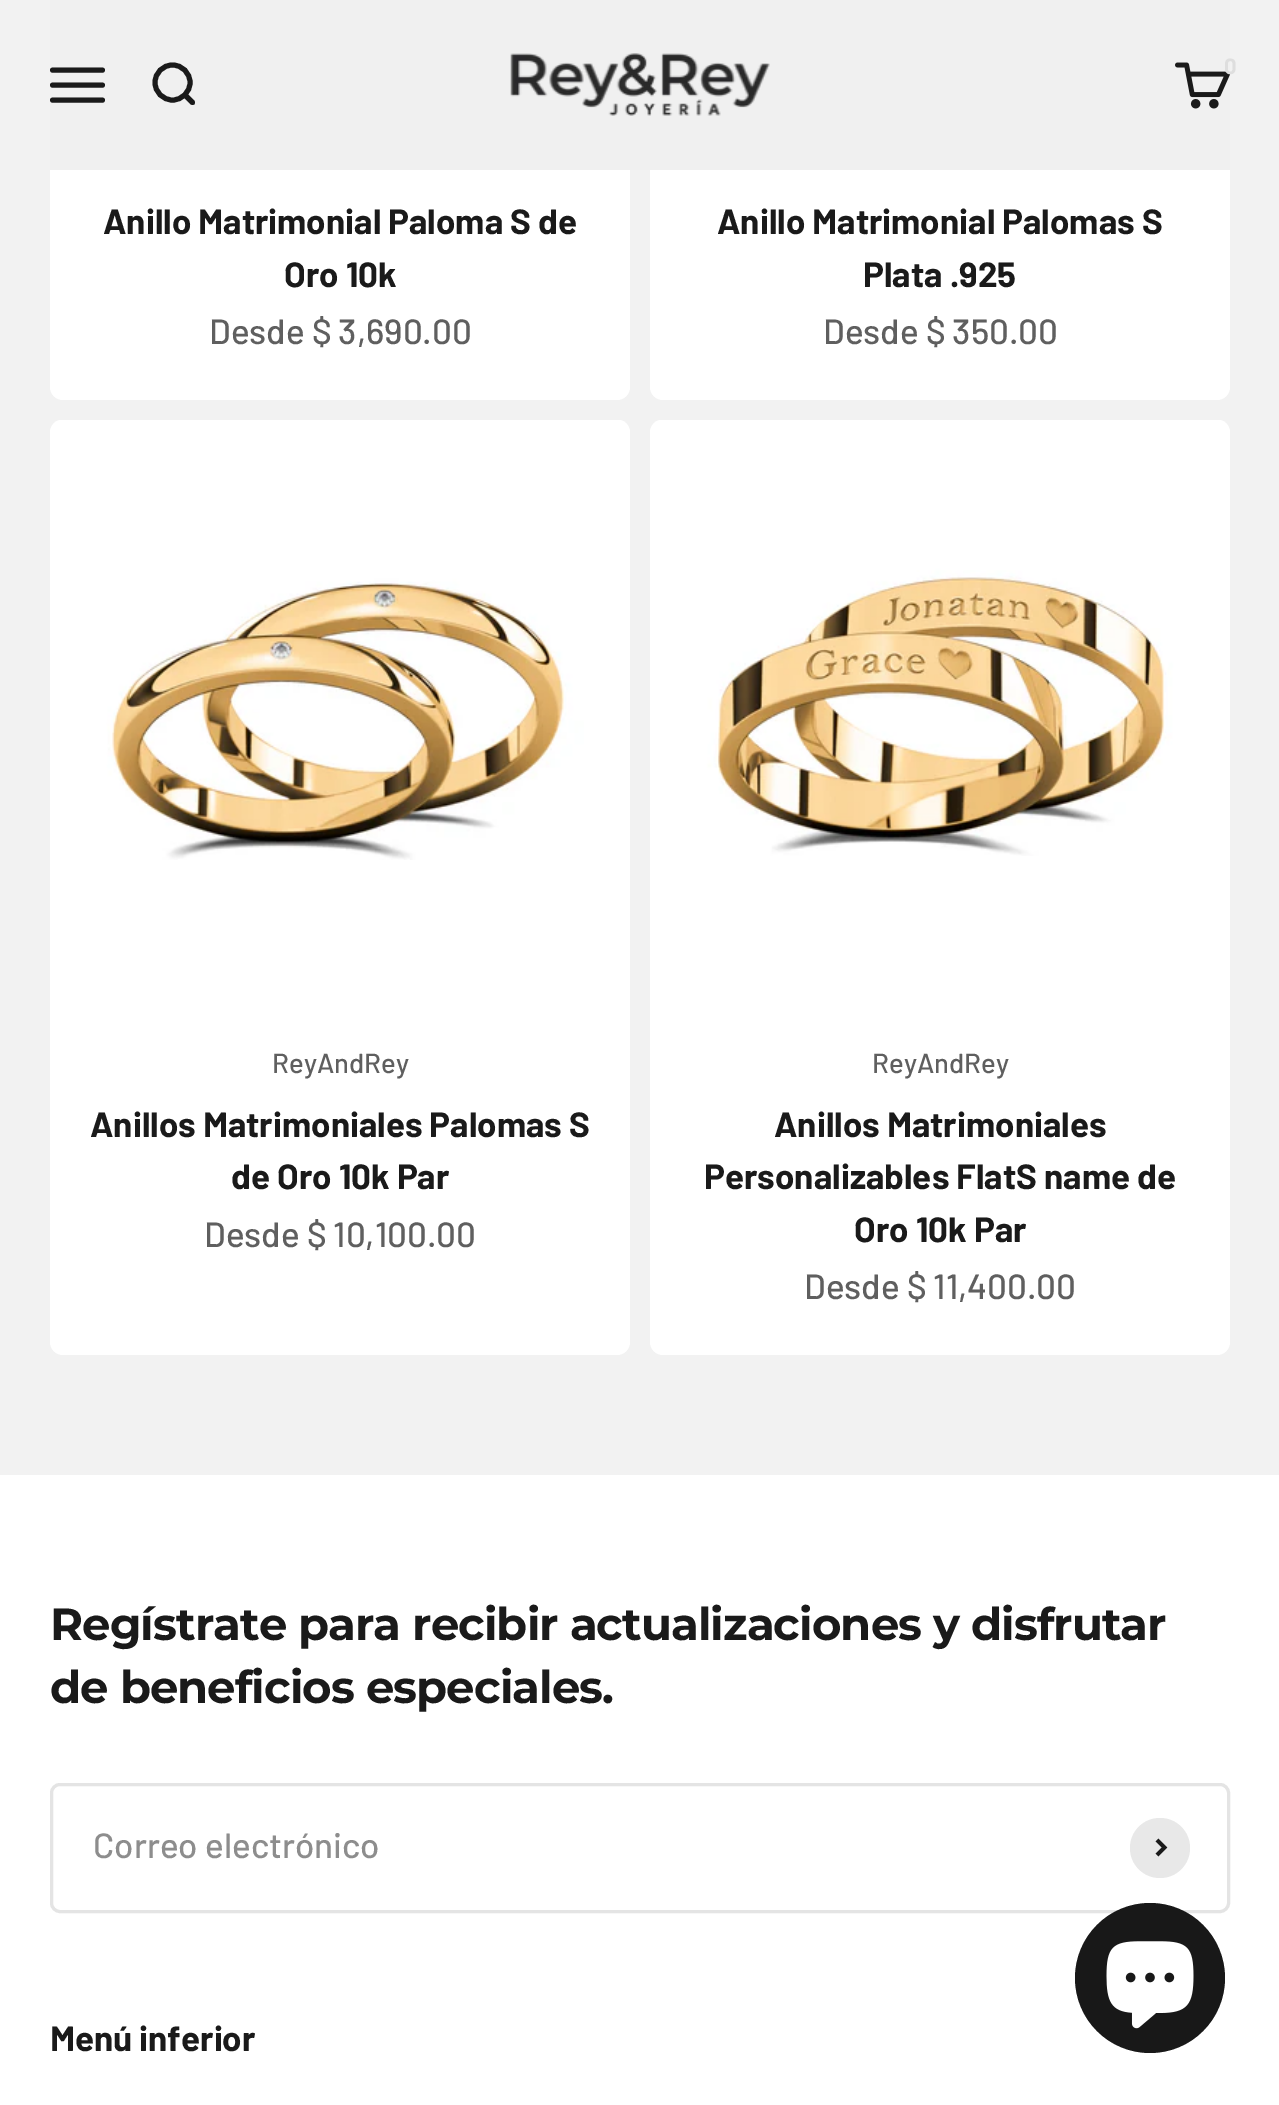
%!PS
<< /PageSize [1279 2105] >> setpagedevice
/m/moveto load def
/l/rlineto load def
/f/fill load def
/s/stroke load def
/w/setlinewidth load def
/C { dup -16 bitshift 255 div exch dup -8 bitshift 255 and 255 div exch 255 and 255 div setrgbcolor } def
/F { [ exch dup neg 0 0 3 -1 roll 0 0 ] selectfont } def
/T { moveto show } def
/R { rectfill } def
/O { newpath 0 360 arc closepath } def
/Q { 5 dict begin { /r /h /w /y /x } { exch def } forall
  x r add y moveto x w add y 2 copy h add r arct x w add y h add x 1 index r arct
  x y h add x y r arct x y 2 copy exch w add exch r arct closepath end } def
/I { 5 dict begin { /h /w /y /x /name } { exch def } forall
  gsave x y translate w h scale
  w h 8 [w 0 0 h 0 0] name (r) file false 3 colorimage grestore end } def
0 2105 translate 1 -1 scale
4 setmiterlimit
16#F2F2F2 C
0 0 1279 2105 R
16#FFFFFF C
50 -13 580 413 13 Q f
650 -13 580 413 13 Q f
16#F0F0F0 C
50 0 1180 170 R
16#1A1A1A C
5 w
1 setlinecap
52.5 70 m 50 0 l 52.5 85 m 50 0 l 52.5 100 m 50 0 l s
0 setlinecap
172.5 82.5 17.5 O s
1 setlinecap
1 setlinejoin
185 95 m 7.5 7.5 l s
(1.rgb) 510 53 260 63 I
(2.rgb) 1175 62 55 47 I
/Barlow-Bold 22 F
16#DEDEDE C
(0) 1224 74 T
/Barlow-Bold 35 F
16#1A1A1A C
(Anillo Matrimonial Paloma S de) 103 234 T
(Oro 10k) 284 287 T
/Barlow-Medium 35 F
16#5F5F5F C
(Desde $ 3,690.00) 209 344 T
/Barlow-Bold 35 F
16#1A1A1A C
(Anillo Matrimonial Palomas S) 717 234 T
(Plata .925) 863 287 T
/Barlow-Medium 35 F
16#5F5F5F C
(Desde $ 350.00) 823 344 T
16#FFFFFF C
50 420 580 935 13 Q f
(3.rgb) 50 420 580 440 I
/Barlow-Medium 27.5 F
16#5F5F5F C
(ReyAndRey) 272 1073 T
/Barlow-Bold 35 F
16#1A1A1A C
(Anillos Matrimoniales Palomas S) 90 1137 T
(de Oro 10k Par) 231 1189 T
/Barlow-Medium 35 F
16#5F5F5F C
(Desde $ 10,100.00) 204 1247 T
16#FFFFFF C
650 420 580 935 13 Q f
(4.rgb) 650 420 580 436 I
/Barlow-Medium 27.5 F
16#5F5F5F C
(ReyAndRey) 872 1073 T
/Barlow-Bold 35 F
16#1A1A1A C
(Anillos Matrimoniales) 774 1137 T
(Personalizables FlatS name de) 704 1189 T
(Oro 10k Par) 854 1242 T
/Barlow-Medium 35 F
16#5F5F5F C
(Desde $ 11,400.00) 804 1299 T
16#FFFFFF C
0 1475 1279 630 R
/Montserrat-Bold 45 F
16#1A1A1A C
50 1640 m -.9 0 (Regístrate para recibir actualizaciones y disfrutar) ashow
50 1703 m -.9 0 (de beneficios especiales.) ashow
16#E4E4E4 C
3 w
0 setlinecap
0 setlinejoin
51.5 1784.5 1177 127 8.5 Q s
/Barlow-Medium 35 F
16#8D8D8D C
(Correo electrónico) 93 1858 T
16#E8E8E8 C
1160 1848 30 O f
16#1A1A1A C
3.8 w
1157 1855 m 7.5 -7.5 l -7.5 -7.5 l s
/Barlow-Bold 35 F
(Menú inferior) 50 2051 T
16#181818 C
1150 1978 75 O f
(5.rgb) 1106 1941 88 88 I
showpage
